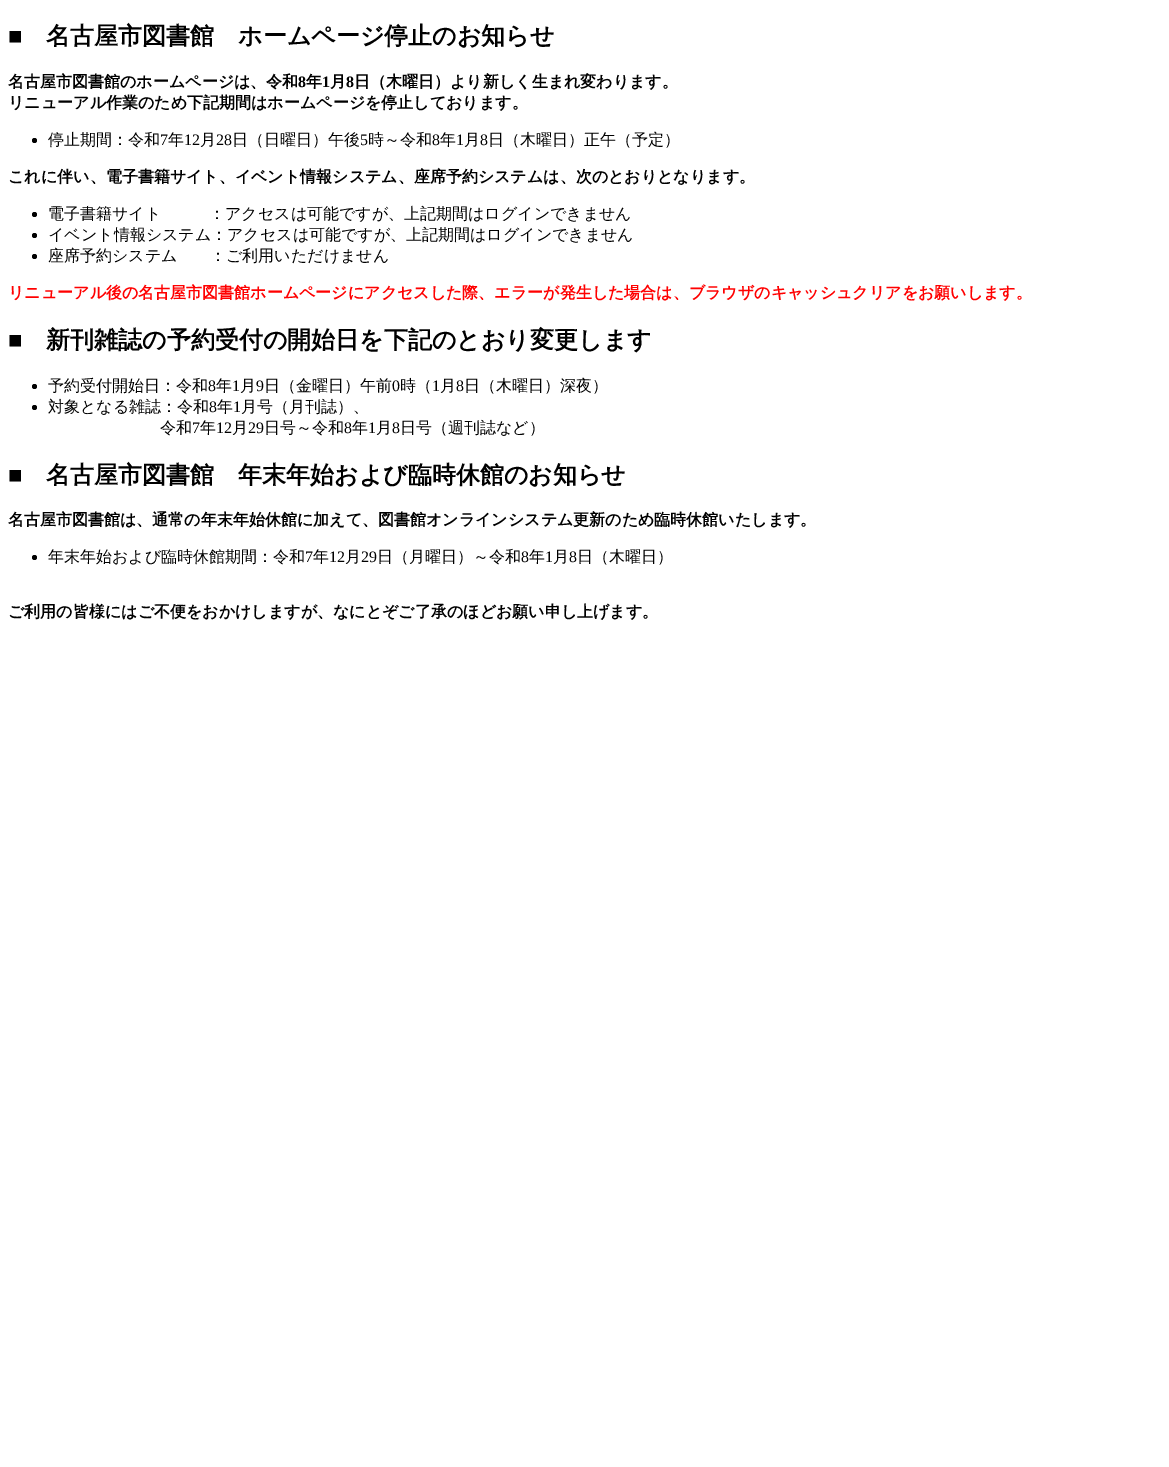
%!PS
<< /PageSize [1169 1467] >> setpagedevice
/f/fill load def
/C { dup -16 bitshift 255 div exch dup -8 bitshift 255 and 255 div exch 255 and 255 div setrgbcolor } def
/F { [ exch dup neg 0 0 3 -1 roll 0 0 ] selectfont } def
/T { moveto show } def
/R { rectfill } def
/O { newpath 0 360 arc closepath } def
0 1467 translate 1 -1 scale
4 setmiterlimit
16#FFFFFF C
0 0 1169 1467 R
/LiberationSerif-Bold 24 F
16#000000 C
(■) 8 44 T
/WenQuanYiZenHei-Bold 24 F
(名古屋市図書館　ホームページ停止のお知らせ) 46 44 T
/WenQuanYiZenHei-Bold 16 F
(名古屋市図書館のホームページは、令和) 8 87 T
/LiberationSerif-Bold 16 F
(8) 298 87 T
/WenQuanYiZenHei-Bold 16 F
(年) 306 87 T
/LiberationSerif-Bold 16 F
(1) 322 87 T
/WenQuanYiZenHei-Bold 16 F
(月) 330 87 T
/LiberationSerif-Bold 16 F
(8) 346 87 T
/WenQuanYiZenHei-Bold 16 F
(日（木曜日）より新しく生まれ変わります。) 354 87 T
(リニューアル作業のため下記期間はホームページを停止しております。) 8 108 T
34.5 140.5 2.5 O f
/WenQuanYiZenHei-Medium 16 F
(停止期間：令和) 48 145 T
/LiberationSerif-Regular 16 F
(7) 160 145 T
/WenQuanYiZenHei-Medium 16 F
(年) 168 145 T
/LiberationSerif-Regular 16 F
(12) 184 145 T
/WenQuanYiZenHei-Medium 16 F
(月) 200 145 T
/LiberationSerif-Regular 16 F
(28) 216 145 T
/WenQuanYiZenHei-Medium 16 F
(日（日曜日）午後) 232 145 T
/LiberationSerif-Regular 16 F
(5) 360 145 T
/WenQuanYiZenHei-Medium 16 F
(時～令和) 368 145 T
/LiberationSerif-Regular 16 F
(8) 432 145 T
/WenQuanYiZenHei-Medium 16 F
(年) 440 145 T
/LiberationSerif-Regular 16 F
(1) 456 145 T
/WenQuanYiZenHei-Medium 16 F
(月) 464 145 T
/LiberationSerif-Regular 16 F
(8) 480 145 T
/WenQuanYiZenHei-Medium 16 F
(日（木曜日）正午（予定）) 488 145 T
/WenQuanYiZenHei-Bold 16 F
(これに伴い、電子書籍サイト、イベント情報システム、座席予約システムは、次のとおりとなります。) 8 182 T
34.5 214.5 2.5 O f
/WenQuanYiZenHei-Medium 16 F
(電子書籍サイト) 48 219 T
(：アクセスは可能ですが、上記期間はログインできません) 209 219 T
34.5 235.5 2.5 O f
(イベント情報システム：アクセスは可能ですが、上記期間はログインできません) 48 240 T
34.5 256.5 2.5 O f
(座席予約システム) 48 261 T
(：ご利用いただけません) 210 261 T
/WenQuanYiZenHei-Bold 16 F
16#FF0000 C
(リニューアル後の名古屋市図書館ホームページにアクセスした際、エラーが発生した場合は、ブラウザのキャッシュクリアをお願いします。) 8 298 T
/LiberationSerif-Bold 24 F
16#000000 C
(■) 8 348 T
/WenQuanYiZenHei-Bold 24 F
(新刊雑誌の予約受付の開始日を下記のとおり変更します) 46 348 T
34.5 386.5 2.5 O f
/WenQuanYiZenHei-Medium 16 F
(予約受付開始日：令和) 48 391 T
/LiberationSerif-Regular 16 F
(8) 208 391 T
/WenQuanYiZenHei-Medium 16 F
(年) 216 391 T
/LiberationSerif-Regular 16 F
(1) 232 391 T
/WenQuanYiZenHei-Medium 16 F
(月) 240 391 T
/LiberationSerif-Regular 16 F
(9) 256 391 T
/WenQuanYiZenHei-Medium 16 F
(日（金曜日）午前) 264 391 T
/LiberationSerif-Regular 16 F
(0) 392 391 T
/WenQuanYiZenHei-Medium 16 F
(時（) 400 391 T
/LiberationSerif-Regular 16 F
(1) 432 391 T
/WenQuanYiZenHei-Medium 16 F
(月) 440 391 T
/LiberationSerif-Regular 16 F
(8) 456 391 T
/WenQuanYiZenHei-Medium 16 F
(日（木曜日）深夜）) 464 391 T
34.5 407.5 2.5 O f
(対象となる雑誌：令和) 48 412 T
/LiberationSerif-Regular 16 F
(8) 209 412 T
/WenQuanYiZenHei-Medium 16 F
(年) 217 412 T
/LiberationSerif-Regular 16 F
(1) 233 412 T
/WenQuanYiZenHei-Medium 16 F
(月号（月刊誌）、) 241 412 T
(令和) 160 433 T
/LiberationSerif-Regular 16 F
(7) 192 433 T
/WenQuanYiZenHei-Medium 16 F
(年) 200 433 T
/LiberationSerif-Regular 16 F
(12) 216 433 T
/WenQuanYiZenHei-Medium 16 F
(月) 232 433 T
/LiberationSerif-Regular 16 F
(29) 248 433 T
/WenQuanYiZenHei-Medium 16 F
(日号～令和) 264 433 T
/LiberationSerif-Regular 16 F
(8) 344 433 T
/WenQuanYiZenHei-Medium 16 F
(年) 352 433 T
/LiberationSerif-Regular 16 F
(1) 368 433 T
/WenQuanYiZenHei-Medium 16 F
(月) 376 433 T
/LiberationSerif-Regular 16 F
(8) 392 433 T
/WenQuanYiZenHei-Medium 16 F
(日号（週刊誌など）) 400 433 T
/LiberationSerif-Bold 24 F
(■) 8 483 T
/WenQuanYiZenHei-Bold 24 F
(名古屋市図書館　年末年始および臨時休館のお知らせ) 46 483 T
/WenQuanYiZenHei-Bold 16 F
(名古屋市図書館は、通常の年末年始休館に加えて、図書館オンラインシステム更新のため臨時休館いたします。) 8 525 T
34.5 557.5 2.5 O f
/WenQuanYiZenHei-Medium 16 F
(年末年始および臨時休館期間：令和) 48 562 T
/LiberationSerif-Regular 16 F
(7) 305 562 T
/WenQuanYiZenHei-Medium 16 F
(年) 313 562 T
/LiberationSerif-Regular 16 F
(12) 329 562 T
/WenQuanYiZenHei-Medium 16 F
(月) 345 562 T
/LiberationSerif-Regular 16 F
(29) 361 562 T
/WenQuanYiZenHei-Medium 16 F
(日（月曜日）～令和) 377 562 T
/LiberationSerif-Regular 16 F
(8) 521 562 T
/WenQuanYiZenHei-Medium 16 F
(年) 529 562 T
/LiberationSerif-Regular 16 F
(1) 545 562 T
/WenQuanYiZenHei-Medium 16 F
(月) 553 562 T
/LiberationSerif-Regular 16 F
(8) 569 562 T
/WenQuanYiZenHei-Medium 16 F
(日（木曜日）) 577 562 T
/WenQuanYiZenHei-Bold 16 F
(ご利用の皆様にはご不便をおかけしますが、なにとぞご了承のほどお願い申し上げます。) 8 617 T
showpage
